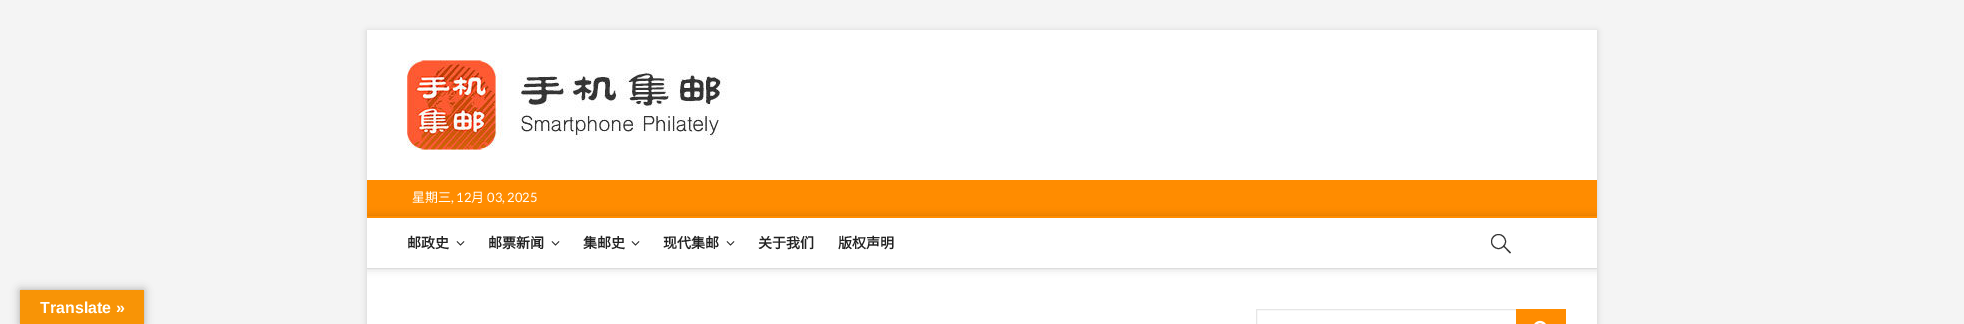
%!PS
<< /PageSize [1964 324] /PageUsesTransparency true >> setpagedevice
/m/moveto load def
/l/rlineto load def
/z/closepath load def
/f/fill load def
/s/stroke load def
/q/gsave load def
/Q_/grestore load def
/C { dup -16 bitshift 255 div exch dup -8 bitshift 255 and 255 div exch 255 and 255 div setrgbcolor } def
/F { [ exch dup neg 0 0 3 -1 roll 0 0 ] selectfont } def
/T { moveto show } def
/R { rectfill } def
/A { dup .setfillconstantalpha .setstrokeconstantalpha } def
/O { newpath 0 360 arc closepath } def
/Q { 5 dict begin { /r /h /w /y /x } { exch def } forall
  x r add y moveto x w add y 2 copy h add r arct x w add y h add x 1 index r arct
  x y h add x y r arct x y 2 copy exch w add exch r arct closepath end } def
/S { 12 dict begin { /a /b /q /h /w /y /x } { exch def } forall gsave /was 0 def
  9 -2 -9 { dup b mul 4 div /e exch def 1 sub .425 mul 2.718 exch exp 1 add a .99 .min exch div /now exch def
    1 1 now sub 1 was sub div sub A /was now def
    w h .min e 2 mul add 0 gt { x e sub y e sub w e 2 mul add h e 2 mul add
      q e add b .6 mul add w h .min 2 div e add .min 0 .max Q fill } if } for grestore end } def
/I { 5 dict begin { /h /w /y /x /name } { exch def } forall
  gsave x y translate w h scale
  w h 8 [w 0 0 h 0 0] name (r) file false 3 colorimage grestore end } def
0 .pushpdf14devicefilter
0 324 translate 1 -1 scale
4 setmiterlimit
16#F4F4F4 C
0 0 1964 324 R
16#000000 C
367 31 1230 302 0 3 .15 S
16#FFFFFF C
367 30 1230 294 R
(1.rgb) 407 60 320 90 I
16#FF8C00 C
367 180 1230 36 R
q
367 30 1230 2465 rectclip
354 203 m 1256 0 l 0 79 l -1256 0 l z 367 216 m 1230 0 l 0 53 l -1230 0 l z eoclip newpath
16#000000 C
367 216 1230 53 0 4 .15 S
Q_
/NotoSansCJKSC-Regular 13 F
16#FFFFFF C
(星期三) 412 202 T
/Lato-Regular 13 F
(, 12) 451 202 T
/NotoSansCJKSC-Regular 13 F
(月) 471 202 T
/Lato-Regular 13 F
(03, 2025) 487 202 T
16#FF8C00 C
367 216 1230 2 R
16#DDDDDD C
367 268 1230 1 R
/NotoSansCJKSC-Bold 14 F
16#222222 C
(邮政史) 407 248 T
(2.rgb) 456 241 9 5 I
(邮票新闻) 488 248 T
(2.rgb) 551 241 9 5 I
(集邮史) 583 248 T
(2.rgb) 631 241 9 5 I
(现代集邮) 663 248 T
(2.rgb) 726 241 9 5 I
(关于我们) 758 248 T
(版权声明) 838 248 T
16#333333 C
1498.5 241.5 7 O s
1503 246 m 1 -.5 l 7 7 l -1 1 l z f
16#E6E6E6 C
1256.5 309.5 260 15 rectstroke
16#FF8C00 C
1516 309 50 15 R
(3.rgb) 1534 320 12 4 I
16#000000 C
20 290 124 34 0 4.5 .3 S
16#F89406 C
20 290 124 34 R
/LiberationSans-Bold 16 F
16#FFFFFF C
(Translate ») 40 313 T
.poppdf14devicefilter showpage
